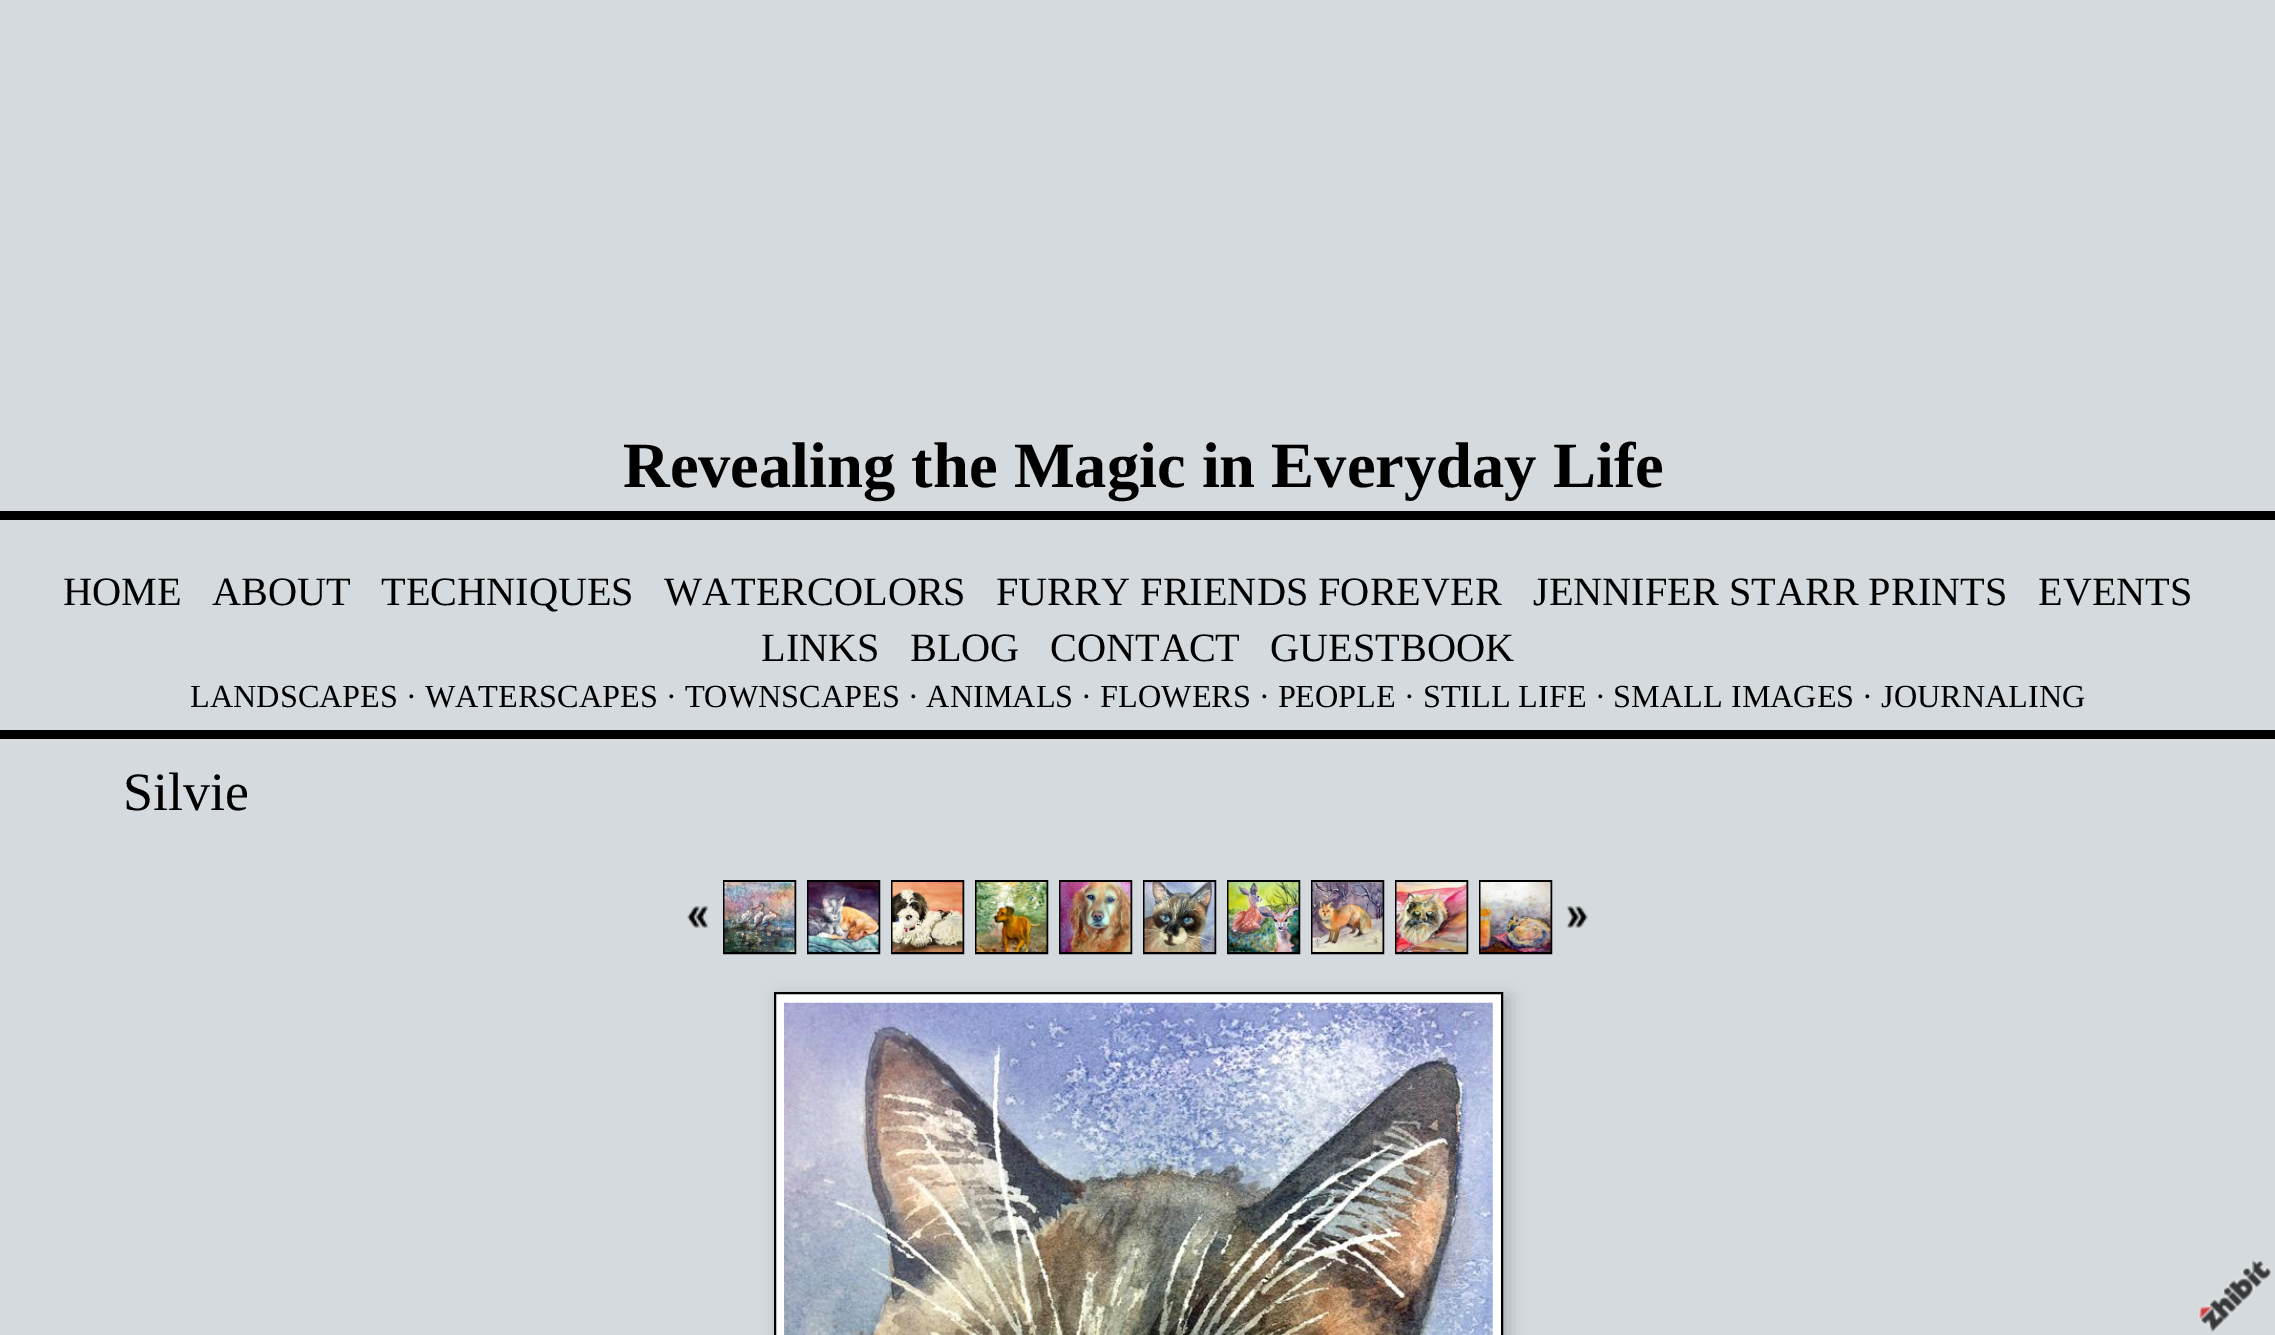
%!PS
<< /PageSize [2275 1335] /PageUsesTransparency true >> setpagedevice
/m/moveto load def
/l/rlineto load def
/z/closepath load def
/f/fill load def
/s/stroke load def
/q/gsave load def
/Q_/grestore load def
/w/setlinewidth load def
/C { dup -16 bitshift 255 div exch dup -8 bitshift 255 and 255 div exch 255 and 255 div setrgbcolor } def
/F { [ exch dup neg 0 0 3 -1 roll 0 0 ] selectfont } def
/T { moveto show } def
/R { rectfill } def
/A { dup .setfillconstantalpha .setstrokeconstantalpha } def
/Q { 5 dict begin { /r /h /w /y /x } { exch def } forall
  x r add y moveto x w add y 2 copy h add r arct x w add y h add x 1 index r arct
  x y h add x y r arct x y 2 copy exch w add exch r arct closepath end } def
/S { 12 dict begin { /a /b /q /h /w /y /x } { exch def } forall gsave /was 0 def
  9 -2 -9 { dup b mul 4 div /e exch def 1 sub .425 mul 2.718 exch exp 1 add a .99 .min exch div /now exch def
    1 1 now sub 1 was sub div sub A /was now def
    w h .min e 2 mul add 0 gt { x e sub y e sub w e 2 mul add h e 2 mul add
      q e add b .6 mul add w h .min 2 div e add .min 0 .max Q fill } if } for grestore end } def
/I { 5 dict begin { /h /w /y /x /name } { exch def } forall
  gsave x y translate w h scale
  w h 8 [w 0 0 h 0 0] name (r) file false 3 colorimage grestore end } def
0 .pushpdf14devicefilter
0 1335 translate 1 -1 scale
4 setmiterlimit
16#D4DADE C
0 0 2275 1335 R
/LiberationSerif-Bold 64.5 F
16#000000 C
(Revealing the Magic in Everyday Life) 623 487 T
0 511 2275 9 R
0 730 2275 9 R
/LiberationSerif-Regular 40.25 F
(HOME) 63 605 T
(ABOUT) 212 605 T
(TECHNIQUES) 381 605 T
(WATERCOLORS) 664 605 T
(FURRY FRIENDS FOREVER) 996 605 T
(JENNIFER STARR PRINTS) 1533 605 T
(EVENTS) 2038 605 T
(LINKS) 761 661 T
(BLOG) 910 661 T
(CONTACT) 1050 661 T
(GUESTBOOK) 1270 661 T
/LiberationSerif-Regular 32.25 F
(LANDSCAPES · WATERSCAPES · TOWNSCAPES · ANIMALS · FLOWERS · PEOPLE · STILL LIFE · SMALL IMAGES · JOURNALING) 190 707 T
/LiberationSerif-Regular 54 F
(Silvie) 123 810 T
(1.rgb) 687 906 22 22 I
2 w
724 881 71 72 rectstroke
(2.rgb) 724 882 71 70 I
808 881 71 72 rectstroke
(3.rgb) 808 882 71 70 I
892 881 71 72 rectstroke
(4.rgb) 892 882 71 70 I
976 881 71 72 rectstroke
(5.rgb) 976 882 71 70 I
1060 881 71 72 rectstroke
(6.rgb) 1060 882 71 70 I
1144 881 71 72 rectstroke
(7.rgb) 1144 882 71 70 I
1228 881 71 72 rectstroke
(8.rgb) 1228 882 71 70 I
1312 881 71 72 rectstroke
(9.rgb) 1312 882 71 70 I
1396 881 71 72 rectstroke
(10.rgb) 1396 882 71 70 I
1480 881 71 72 rectstroke
(11.rgb) 1480 882 71 70 I
(12.rgb) 1566 906 22 22 I
16#A9AEB1 C
779 998 730 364 0 9 1 S
16#FFFFFF C
775 993 m 727 0 l 0 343 l -727 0 l z q f Q_
16#000000 C
s
(13.rgb) 784 1002 709 333 I
(14.rgb) 2198 1260 74 72 I
.poppdf14devicefilter showpage
